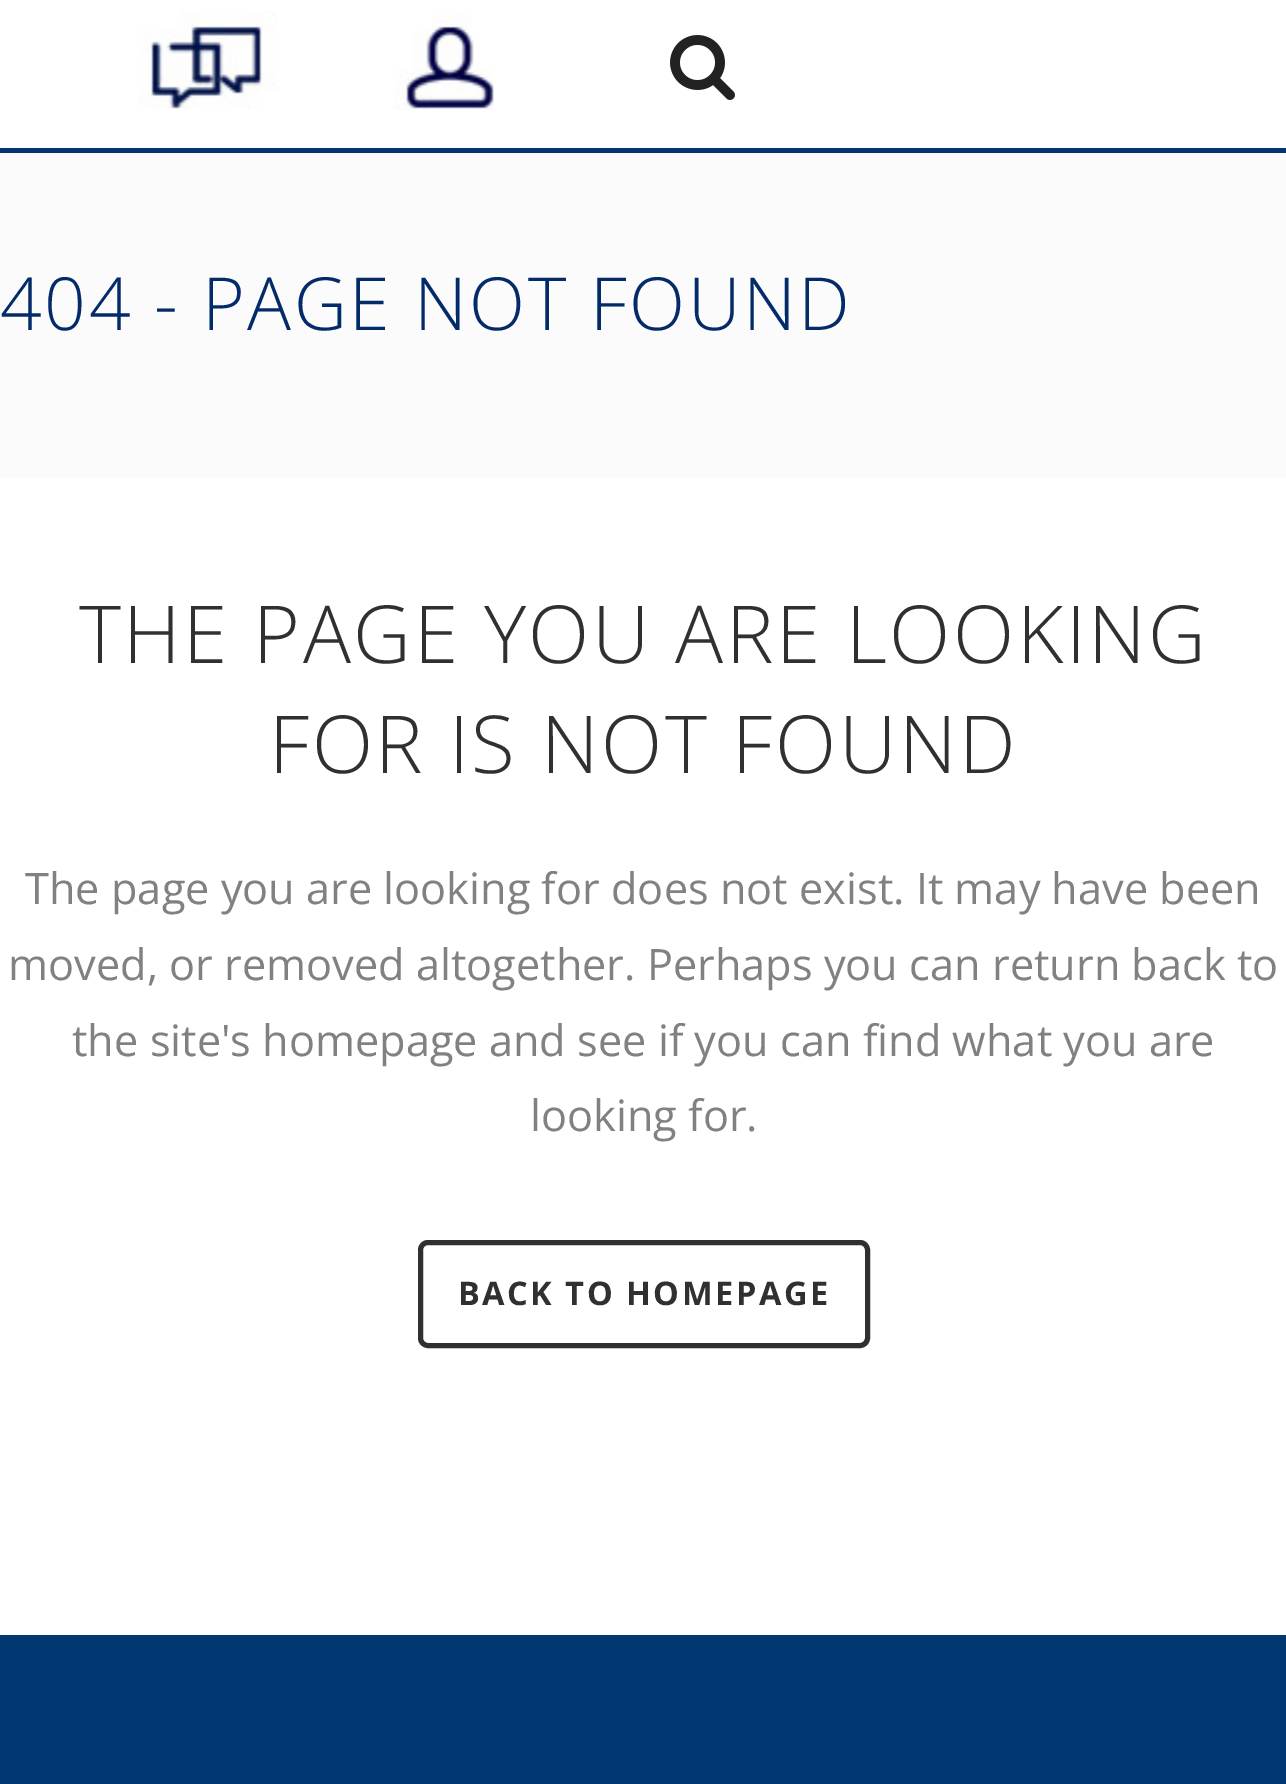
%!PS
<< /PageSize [1286 1784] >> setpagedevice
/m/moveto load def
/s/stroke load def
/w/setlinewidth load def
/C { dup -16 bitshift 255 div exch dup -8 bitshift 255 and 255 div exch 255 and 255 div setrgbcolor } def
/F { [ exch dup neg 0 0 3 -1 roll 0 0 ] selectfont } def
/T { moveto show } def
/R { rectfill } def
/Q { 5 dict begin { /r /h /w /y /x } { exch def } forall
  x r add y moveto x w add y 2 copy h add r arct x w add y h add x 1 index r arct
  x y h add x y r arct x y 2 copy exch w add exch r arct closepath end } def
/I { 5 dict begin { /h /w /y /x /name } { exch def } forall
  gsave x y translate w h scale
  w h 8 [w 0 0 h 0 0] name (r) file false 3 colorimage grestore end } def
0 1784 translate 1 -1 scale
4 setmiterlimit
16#FFFFFF C
0 0 1286 1784 R
16#013871 C
0 148 1286 5 R
(1.rgb) 137 10 141 100 I
(2.rgb) 393 10 101 100 I
(3.rgb) 670 35 65 65 I
16#FBFBFB C
0 153 1286 325 R
/OpenSans-Light 73.25 F
16#032A69 C
0 330 m 2.5 0 (404 - PAGE NOT FOUND) ashow
/OpenSans-Light 80 F
16#303030 C
79 663 m 2.5 0 (THE PAGE YOU ARE LOOKING) ashow
269 773 m 2.5 0 (FOR IS NOT FOUND) ashow
/OpenSans-Regular 43.3 F
16#818181 C
(The page you are looking for does not exist. It may have been) 25 904 T
(moved, or removed altogether. Perhaps you can return back to) 8 980 T
(the site's homepage and see if you can find what you are) 72 1056 T
(looking for.) 530 1131 T
16#303030 C
5 w
420.5 1242.5 447 103 7.5 Q s
/OpenSans-Bold 32.5 F
458 1305 m 2.5 0 (BACK TO HOMEPAGE) ashow
16#013871 C
0 1635 1286 149 R
showpage
